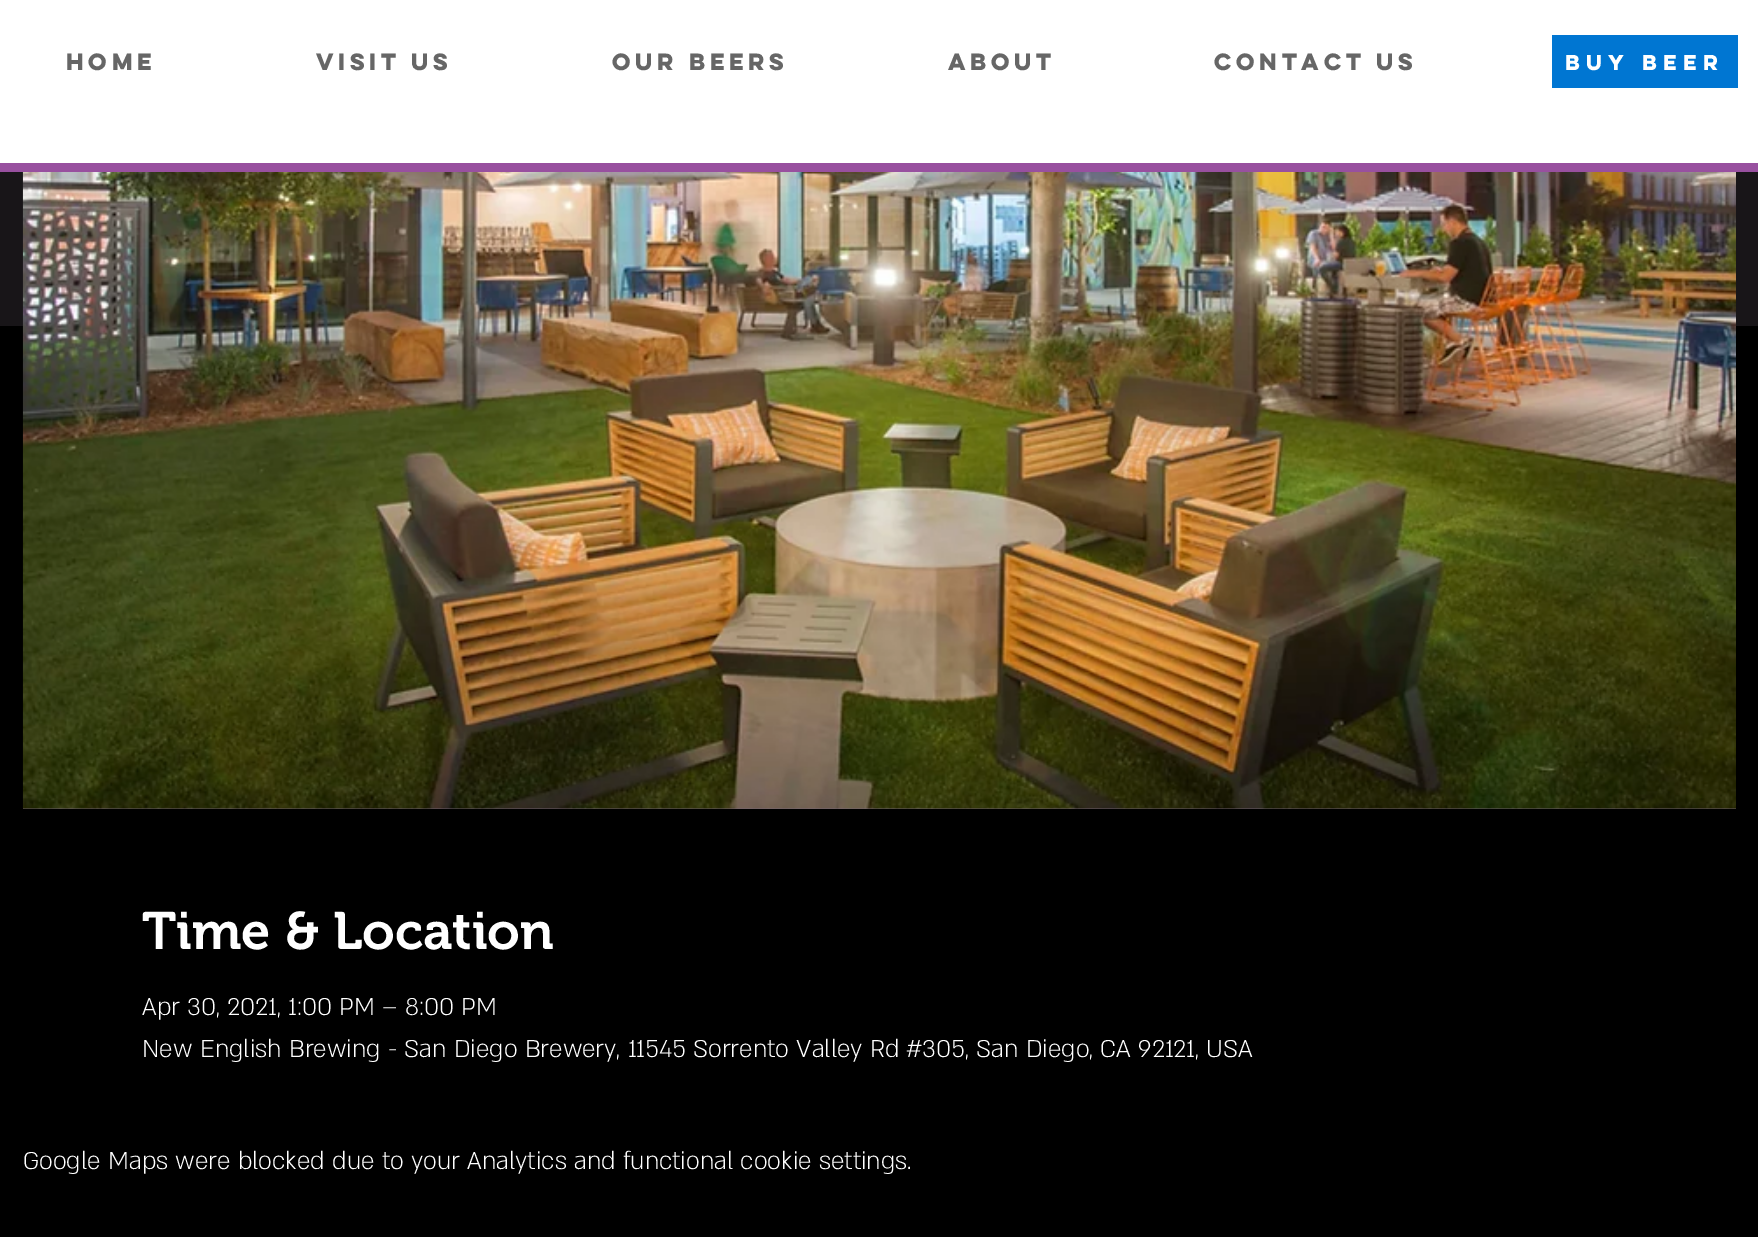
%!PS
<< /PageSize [1758 1237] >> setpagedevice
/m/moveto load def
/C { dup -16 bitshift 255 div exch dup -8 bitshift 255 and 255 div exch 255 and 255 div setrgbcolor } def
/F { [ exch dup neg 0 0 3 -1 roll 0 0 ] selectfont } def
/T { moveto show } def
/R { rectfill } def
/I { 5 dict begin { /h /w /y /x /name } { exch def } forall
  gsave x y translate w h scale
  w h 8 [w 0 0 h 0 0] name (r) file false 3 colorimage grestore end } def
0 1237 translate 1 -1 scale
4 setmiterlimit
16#000000 C
0 0 1758 1237 R
16#FFFFFF C
0 0 1758 163 R
16#98509F C
0 163 1758 9 R
/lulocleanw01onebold-Bold 21 F
16#666666 C
(HOME) 66 70 T
(VISIT US) 316 70 T
(OUR BEERS) 612 70 T
(ABOUT) 948 70 T
(CONTACT US) 1214 70 T
16#0076D2 C
1552 35 186 53 R
/lulocleanw01onebold-Bold 19.25 F
16#FFFFFF C
1565 70 m 2 0 (BUY BEER) ashow
16#181518 C
0 172 1758 154 R
16#78687A C
23 808 1713 1 R
(1.rgb) 22 172 1714 637 I
/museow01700-SemiBold 52.5 F
16#FFFFFF C
(Time & Location) 142 949 T
/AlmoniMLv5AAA-Light 28 F
(Apr 30, 2021, 1:00 PM – 8:00 PM) 142 1015 T
(New English Brewing - San Diego Brewery, 11545 Sorrento Valley Rd #305, San Diego, CA 92121, USA) 142 1057 T
(Google Maps were blocked due to your Analytics and functional cookie settings.) 23 1169 T
showpage
